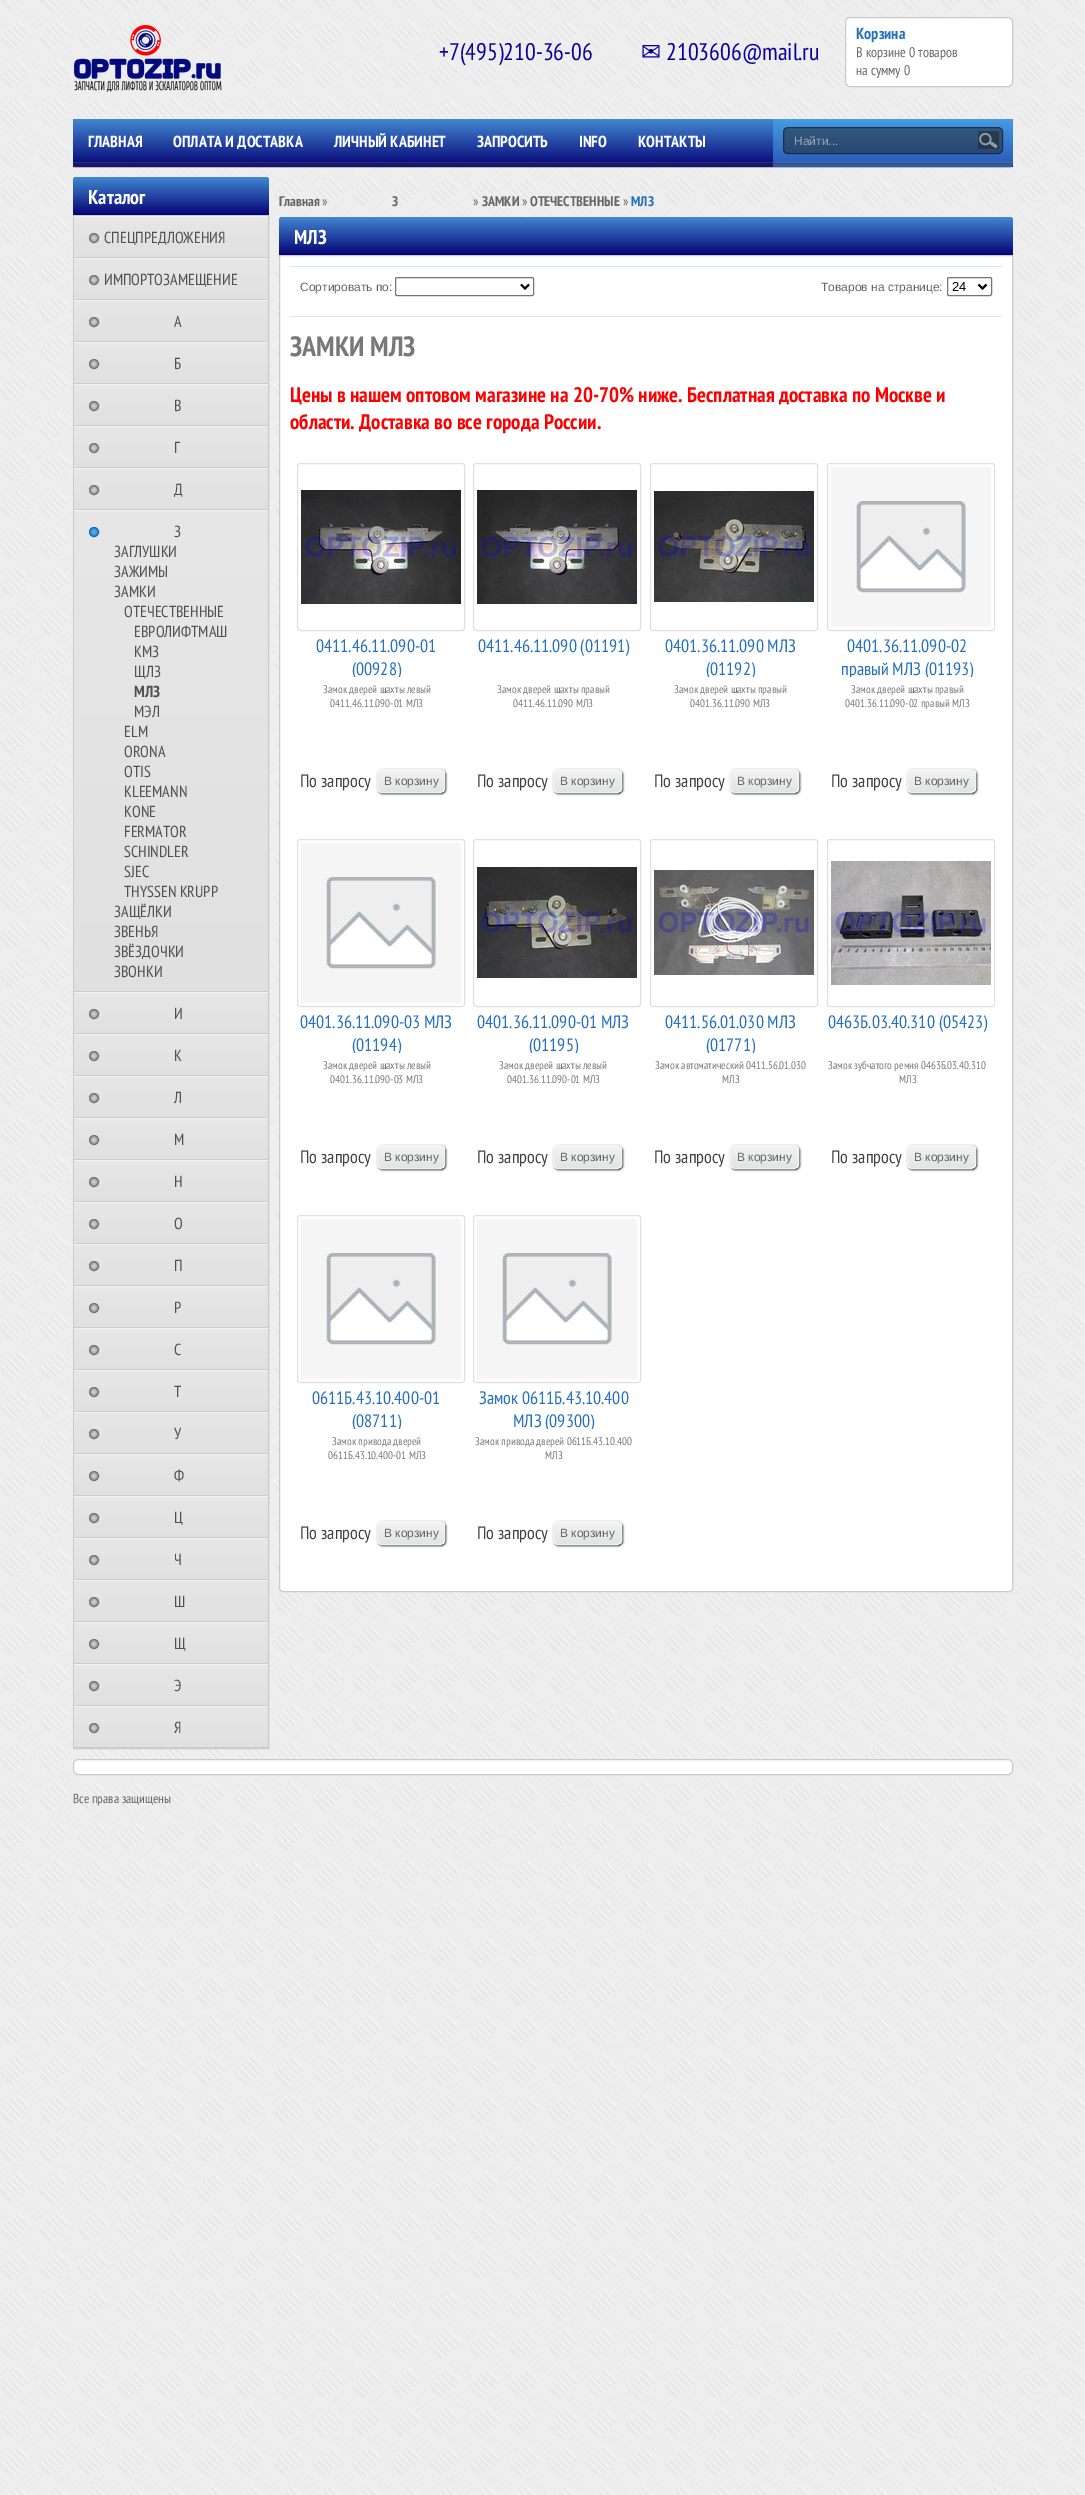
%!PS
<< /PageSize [1085 2495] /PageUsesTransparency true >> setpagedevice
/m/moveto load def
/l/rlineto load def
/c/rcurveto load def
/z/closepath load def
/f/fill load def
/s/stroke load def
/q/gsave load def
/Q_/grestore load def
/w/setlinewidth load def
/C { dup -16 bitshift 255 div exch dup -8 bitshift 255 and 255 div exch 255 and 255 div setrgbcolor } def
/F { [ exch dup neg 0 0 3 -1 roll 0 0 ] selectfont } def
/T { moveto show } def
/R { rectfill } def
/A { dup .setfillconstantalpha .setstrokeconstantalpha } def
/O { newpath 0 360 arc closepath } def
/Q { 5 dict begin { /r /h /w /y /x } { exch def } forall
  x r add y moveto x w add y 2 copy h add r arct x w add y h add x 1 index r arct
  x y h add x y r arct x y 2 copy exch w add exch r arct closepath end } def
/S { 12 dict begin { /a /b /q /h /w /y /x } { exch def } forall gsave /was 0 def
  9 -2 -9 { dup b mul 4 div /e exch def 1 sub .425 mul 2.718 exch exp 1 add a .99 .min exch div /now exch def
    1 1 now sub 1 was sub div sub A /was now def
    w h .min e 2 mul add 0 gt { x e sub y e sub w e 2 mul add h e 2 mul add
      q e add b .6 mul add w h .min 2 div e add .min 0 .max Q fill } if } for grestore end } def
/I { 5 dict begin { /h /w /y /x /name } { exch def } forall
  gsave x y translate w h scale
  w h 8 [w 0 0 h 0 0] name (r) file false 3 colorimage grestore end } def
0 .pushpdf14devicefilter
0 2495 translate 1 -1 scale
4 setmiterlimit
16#FFFFFF C
0 0 1085 2495 R
(1.rgb) 0 0 1085 2495 I
(2.rgb) 73 24 149 68 I
/PTSansNarrow-Regular 24 F
16#07029C C
(+7\(495\)210-36-06) 439 60 T
/DejaVuSans-Regular 24 F
(✉) 641 60 T
/PTSansNarrow-Regular 24 F
(2103606@mail.ru) 666 60 T
16#FFFFFF C
845.5 17.5 167 69 4.5 Q q f Q_
16#CACACB C
s
/PTSansNarrow-Bold 16 F
16#2570BB C
(Корзина) 856 39 T
/PTSansNarrow-Regular 14 F
16#666666 C
(В корзине 0 товаров) 856 57 T
(на сумму 0) 856 75 T
q 73 119 940 48 3 Q clip newpath
<< /ShadingType 2 /ColorSpace /DeviceRGB /Coords [543 167 543 119] /Extend [true true] /Function << /FunctionType 2 /Domain [0 1] /C0 [.02 .008 .459] /C1 [.259 .533 .82] /N 1 >> >> shfill Q_
/PTSansNarrow-Bold 16 F
16#FFFFFF C
(ГЛАВНАЯ) 88 147 T
(ОПЛАТА И ДОСТАВКА) 173 147 T
(ЛИЧНЫЙ КАБИНЕТ) 334 147 T
(ЗАПРОСИТЬ) 477 147 T
(INFO) 579 147 T
(КОНТАКТЫ) 638 147 T
0.5 A
16#49ADF5 C
773 119 m 237 0 l 1.5 0 3 1.5 3 3 c 0 42 l 0 1.5 -1.5 3 -3 3 c -237 0 l z f
0.2 A
16#AAAAAA C
73 162 939 1 R
16#555555 C
73 163 m 939 0 l 0 2 l 0 1.5 -1.5 3 -3 3 c -933 0 l -1.5 0 -3 -1.5 -3 -3 c z f
16#111111 C
73 163 m 0 1 l 939 0 l 0 -1 l z 1012 165 m 0 1 l z 73 166 m 0 -1 l z eofill
16#555555 C
76 168 m 933 0 l 2 0 3 -1 3 -2 c 0 0 -1 1 -3 1 c -933 0 l -2 0 -3 -1 -3 -1 c 0 1 1 2 3 2 c z f
0.5 A
16#222222 C
783 127 220 27 5 Q f
16#111111 C
783.5 127.5 219 26 4.5 Q s
/LiberationSans-Regular 12 F
1 A
16#96A7BB C
(Найти...) 794 145 T
0.5 A
16#222222 C
978 131 21 18 R
1 A
(3.rgb) 978 132 20 17 I
q 77 177 m 188 0 l 2 0 4 2 4 4 c 0 34 l -196 0 l 0 -34 l 0 -2 2 -4 4 -4 c z clip newpath
<< /ShadingType 2 /ColorSpace /DeviceRGB /Coords [171 215 171 177] /Extend [true true] /Function << /FunctionType 2 /Domain [0 1] /C0 [.02 .008 .459] /C1 [.259 .533 .82] /N 1 >> >> shfill Q_
/PTSansNarrow-Bold 20 F
16#FFFFFF C
(Каталог) 88 204 T
16#CACACB C
73.5 215.5 195 1533 rectstroke
q 74 217 m 194 0 l 0 40 l -194 0 l z clip newpath
<< /ShadingType 2 /ColorSpace /DeviceRGB /Coords [171 257 171 217] /Extend [true true] /Function << /FunctionType 2 /Domain [0 1] /C0 [.882 .878 .878] /C1 [.906 .906 .906] /N 1 >> >> shfill Q_
16#F3F3F3 C
74 216 194 1 R
16#CCCCCC C
74 257 194 1 R
(4.rgb) 89 233 10 10 I
16#777777 C
94 238 4.5 O s
/PTSansNarrow-Regular 16 F
16#515151 C
(СПЕЦПРЕДЛОЖЕНИЯ) 104 243 T
q 74 259 m 194 0 l 0 40 l -194 0 l z clip newpath
<< /ShadingType 2 /ColorSpace /DeviceRGB /Coords [171 299 171 259] /Extend [true true] /Function << /FunctionType 2 /Domain [0 1] /C0 [.882 .878 .878] /C1 [.906 .906 .906] /N 1 >> >> shfill Q_
16#F3F3F3 C
74 258 194 1 R
16#CCCCCC C
74 299 194 1 R
(4.rgb) 89 275 10 10 I
16#777777 C
94 280 4.5 O s
16#515151 C
(ИМПОРТОЗАМЕЩЕНИЕ) 104 285 T
q 74 301 m 194 0 l 0 40 l -194 0 l z clip newpath
<< /ShadingType 2 /ColorSpace /DeviceRGB /Coords [171 341 171 301] /Extend [true true] /Function << /FunctionType 2 /Domain [0 1] /C0 [.882 .878 .878] /C1 [.906 .906 .906] /N 1 >> >> shfill Q_
16#F3F3F3 C
74 300 194 1 R
16#CCCCCC C
74 341 194 1 R
(4.rgb) 89 317 10 10 I
16#777777 C
94 322 4.5 O s
16#515151 C
(А) 174 327 T
q 74 343 m 194 0 l 0 40 l -194 0 l z clip newpath
<< /ShadingType 2 /ColorSpace /DeviceRGB /Coords [171 383 171 343] /Extend [true true] /Function << /FunctionType 2 /Domain [0 1] /C0 [.882 .878 .878] /C1 [.906 .906 .906] /N 1 >> >> shfill Q_
16#F3F3F3 C
74 342 194 1 R
16#CCCCCC C
74 383 194 1 R
(4.rgb) 89 359 10 10 I
16#777777 C
94 364 4.5 O s
16#515151 C
(Б) 174 369 T
q 74 385 m 194 0 l 0 40 l -194 0 l z clip newpath
<< /ShadingType 2 /ColorSpace /DeviceRGB /Coords [171 425 171 385] /Extend [true true] /Function << /FunctionType 2 /Domain [0 1] /C0 [.882 .878 .878] /C1 [.906 .906 .906] /N 1 >> >> shfill Q_
16#F3F3F3 C
74 384 194 1 R
16#CCCCCC C
74 425 194 1 R
(4.rgb) 89 401 10 10 I
16#777777 C
94 406 4.5 O s
16#515151 C
(В) 174 411 T
q 74 427 m 194 0 l 0 40 l -194 0 l z clip newpath
<< /ShadingType 2 /ColorSpace /DeviceRGB /Coords [171 467 171 427] /Extend [true true] /Function << /FunctionType 2 /Domain [0 1] /C0 [.882 .878 .878] /C1 [.906 .906 .906] /N 1 >> >> shfill Q_
16#F3F3F3 C
74 426 194 1 R
16#CCCCCC C
74 467 194 1 R
(4.rgb) 89 443 10 10 I
16#777777 C
94 448 4.5 O s
16#515151 C
(Г) 174 453 T
q 74 469 m 194 0 l 0 40 l -194 0 l z clip newpath
<< /ShadingType 2 /ColorSpace /DeviceRGB /Coords [171 509 171 469] /Extend [true true] /Function << /FunctionType 2 /Domain [0 1] /C0 [.882 .878 .878] /C1 [.906 .906 .906] /N 1 >> >> shfill Q_
16#F3F3F3 C
74 468 194 1 R
16#CCCCCC C
74 509 194 1 R
(4.rgb) 89 485 10 10 I
16#777777 C
94 490 4.5 O s
16#515151 C
(Д) 174 495 T
q 74 511 m 194 0 l 0 480 l -194 0 l z clip newpath
<< /ShadingType 2 /ColorSpace /DeviceRGB /Coords [171 991 171 511] /Extend [true true] /Function << /FunctionType 2 /Domain [0 1] /C0 [.882 .878 .878] /C1 [.906 .906 .906] /N 1 >> >> shfill Q_
16#F3F3F3 C
74 510 194 1 R
16#CCCCCC C
74 991 194 1 R
(5.rgb) 89 527 10 10 I
16#216BB7 C
94 532 4.5 O s
16#515151 C
(З) 174 537 T
(ЗАГЛУШКИ) 114 557 T
(ЗАЖИМЫ) 114 577 T
(ЗАМКИ) 114 597 T
(ОТЕЧЕСТВЕННЫЕ) 124 617 T
(ЕВРОЛИФТМАШ) 134 637 T
(КМЗ) 134 657 T
(ЩЛЗ) 134 677 T
/PTSansNarrow-Bold 16 F
(МЛЗ) 134 697 T
/PTSansNarrow-Regular 16 F
(МЭЛ) 134 717 T
(ELM) 124 737 T
(ORONA) 124 757 T
(OTIS) 124 777 T
(KLEEMANN) 124 797 T
(KONE) 124 817 T
(FERMATOR) 124 837 T
(SCHINDLER) 124 857 T
(SJEC) 124 877 T
(THYSSEN KRUPP) 124 897 T
(ЗАЩЁЛКИ) 114 917 T
(ЗВЕНЬЯ) 114 937 T
(ЗВЁЗДОЧКИ) 114 957 T
(ЗВОНКИ) 114 977 T
q 74 993 m 194 0 l 0 40 l -194 0 l z clip newpath
<< /ShadingType 2 /ColorSpace /DeviceRGB /Coords [171 1033 171 993] /Extend [true true] /Function << /FunctionType 2 /Domain [0 1] /C0 [.882 .878 .878] /C1 [.906 .906 .906] /N 1 >> >> shfill Q_
16#F3F3F3 C
74 992 194 1 R
16#CCCCCC C
74 1033 194 1 R
(4.rgb) 89 1009 10 10 I
16#777777 C
94 1014 4.5 O s
16#515151 C
(И) 174 1019 T
q 74 1035 m 194 0 l 0 40 l -194 0 l z clip newpath
<< /ShadingType 2 /ColorSpace /DeviceRGB /Coords [171 1075 171 1035] /Extend [true true] /Function << /FunctionType 2 /Domain [0 1] /C0 [.882 .878 .878] /C1 [.906 .906 .906] /N 1 >> >> shfill Q_
16#F3F3F3 C
74 1034 194 1 R
16#CCCCCC C
74 1075 194 1 R
(4.rgb) 89 1051 10 10 I
16#777777 C
94 1056 4.5 O s
16#515151 C
(К) 174 1061 T
q 74 1077 m 194 0 l 0 40 l -194 0 l z clip newpath
<< /ShadingType 2 /ColorSpace /DeviceRGB /Coords [171 1117 171 1077] /Extend [true true] /Function << /FunctionType 2 /Domain [0 1] /C0 [.882 .878 .878] /C1 [.906 .906 .906] /N 1 >> >> shfill Q_
16#F3F3F3 C
74 1076 194 1 R
16#CCCCCC C
74 1117 194 1 R
(4.rgb) 89 1093 10 10 I
16#777777 C
94 1098 4.5 O s
16#515151 C
(Л) 174 1103 T
q 74 1119 m 194 0 l 0 40 l -194 0 l z clip newpath
<< /ShadingType 2 /ColorSpace /DeviceRGB /Coords [171 1159 171 1119] /Extend [true true] /Function << /FunctionType 2 /Domain [0 1] /C0 [.882 .878 .878] /C1 [.906 .906 .906] /N 1 >> >> shfill Q_
16#F3F3F3 C
74 1118 194 1 R
16#CCCCCC C
74 1159 194 1 R
(4.rgb) 89 1135 10 10 I
16#777777 C
94 1140 4.5 O s
16#515151 C
(М) 174 1145 T
q 74 1161 m 194 0 l 0 40 l -194 0 l z clip newpath
<< /ShadingType 2 /ColorSpace /DeviceRGB /Coords [171 1201 171 1161] /Extend [true true] /Function << /FunctionType 2 /Domain [0 1] /C0 [.882 .878 .878] /C1 [.906 .906 .906] /N 1 >> >> shfill Q_
16#F3F3F3 C
74 1160 194 1 R
16#CCCCCC C
74 1201 194 1 R
(4.rgb) 89 1177 10 10 I
16#777777 C
94 1182 4.5 O s
16#515151 C
(Н) 174 1187 T
q 74 1203 m 194 0 l 0 40 l -194 0 l z clip newpath
<< /ShadingType 2 /ColorSpace /DeviceRGB /Coords [171 1243 171 1203] /Extend [true true] /Function << /FunctionType 2 /Domain [0 1] /C0 [.882 .878 .878] /C1 [.906 .906 .906] /N 1 >> >> shfill Q_
16#F3F3F3 C
74 1202 194 1 R
16#CCCCCC C
74 1243 194 1 R
(4.rgb) 89 1219 10 10 I
16#777777 C
94 1224 4.5 O s
16#515151 C
(О) 174 1229 T
q 74 1245 m 194 0 l 0 40 l -194 0 l z clip newpath
<< /ShadingType 2 /ColorSpace /DeviceRGB /Coords [171 1285 171 1245] /Extend [true true] /Function << /FunctionType 2 /Domain [0 1] /C0 [.882 .878 .878] /C1 [.906 .906 .906] /N 1 >> >> shfill Q_
16#F3F3F3 C
74 1244 194 1 R
16#CCCCCC C
74 1285 194 1 R
(4.rgb) 89 1261 10 10 I
16#777777 C
94 1266 4.5 O s
16#515151 C
(П) 174 1271 T
q 74 1287 m 194 0 l 0 40 l -194 0 l z clip newpath
<< /ShadingType 2 /ColorSpace /DeviceRGB /Coords [171 1327 171 1287] /Extend [true true] /Function << /FunctionType 2 /Domain [0 1] /C0 [.882 .878 .878] /C1 [.906 .906 .906] /N 1 >> >> shfill Q_
16#F3F3F3 C
74 1286 194 1 R
16#CCCCCC C
74 1327 194 1 R
(4.rgb) 89 1303 10 10 I
16#777777 C
94 1308 4.5 O s
16#515151 C
(Р) 174 1313 T
q 74 1329 m 194 0 l 0 40 l -194 0 l z clip newpath
<< /ShadingType 2 /ColorSpace /DeviceRGB /Coords [171 1369 171 1329] /Extend [true true] /Function << /FunctionType 2 /Domain [0 1] /C0 [.882 .878 .878] /C1 [.906 .906 .906] /N 1 >> >> shfill Q_
16#F3F3F3 C
74 1328 194 1 R
16#CCCCCC C
74 1369 194 1 R
(4.rgb) 89 1345 10 10 I
16#777777 C
94 1350 4.5 O s
16#515151 C
(С) 174 1355 T
q 74 1371 m 194 0 l 0 40 l -194 0 l z clip newpath
<< /ShadingType 2 /ColorSpace /DeviceRGB /Coords [171 1411 171 1371] /Extend [true true] /Function << /FunctionType 2 /Domain [0 1] /C0 [.882 .878 .878] /C1 [.906 .906 .906] /N 1 >> >> shfill Q_
16#F3F3F3 C
74 1370 194 1 R
16#CCCCCC C
74 1411 194 1 R
(4.rgb) 89 1387 10 10 I
16#777777 C
94 1392 4.5 O s
16#515151 C
(Т) 174 1397 T
q 74 1413 m 194 0 l 0 40 l -194 0 l z clip newpath
<< /ShadingType 2 /ColorSpace /DeviceRGB /Coords [171 1453 171 1413] /Extend [true true] /Function << /FunctionType 2 /Domain [0 1] /C0 [.882 .878 .878] /C1 [.906 .906 .906] /N 1 >> >> shfill Q_
16#F3F3F3 C
74 1412 194 1 R
16#CCCCCC C
74 1453 194 1 R
(4.rgb) 89 1429 10 10 I
16#777777 C
94 1434 4.5 O s
16#515151 C
(У) 174 1439 T
q 74 1455 m 194 0 l 0 40 l -194 0 l z clip newpath
<< /ShadingType 2 /ColorSpace /DeviceRGB /Coords [171 1495 171 1455] /Extend [true true] /Function << /FunctionType 2 /Domain [0 1] /C0 [.882 .878 .878] /C1 [.906 .906 .906] /N 1 >> >> shfill Q_
16#F3F3F3 C
74 1454 194 1 R
16#CCCCCC C
74 1495 194 1 R
(4.rgb) 89 1471 10 10 I
16#777777 C
94 1476 4.5 O s
16#515151 C
(Ф) 174 1481 T
q 74 1497 m 194 0 l 0 40 l -194 0 l z clip newpath
<< /ShadingType 2 /ColorSpace /DeviceRGB /Coords [171 1537 171 1497] /Extend [true true] /Function << /FunctionType 2 /Domain [0 1] /C0 [.882 .878 .878] /C1 [.906 .906 .906] /N 1 >> >> shfill Q_
16#F3F3F3 C
74 1496 194 1 R
16#CCCCCC C
74 1537 194 1 R
(4.rgb) 89 1513 10 10 I
16#777777 C
94 1518 4.5 O s
16#515151 C
(Ц) 174 1523 T
q 74 1539 m 194 0 l 0 40 l -194 0 l z clip newpath
<< /ShadingType 2 /ColorSpace /DeviceRGB /Coords [171 1579 171 1539] /Extend [true true] /Function << /FunctionType 2 /Domain [0 1] /C0 [.882 .878 .878] /C1 [.906 .906 .906] /N 1 >> >> shfill Q_
16#F3F3F3 C
74 1538 194 1 R
16#CCCCCC C
74 1579 194 1 R
(4.rgb) 89 1555 10 10 I
16#777777 C
94 1560 4.5 O s
16#515151 C
(Ч) 174 1565 T
q 74 1581 m 194 0 l 0 40 l -194 0 l z clip newpath
<< /ShadingType 2 /ColorSpace /DeviceRGB /Coords [171 1621 171 1581] /Extend [true true] /Function << /FunctionType 2 /Domain [0 1] /C0 [.882 .878 .878] /C1 [.906 .906 .906] /N 1 >> >> shfill Q_
16#F3F3F3 C
74 1580 194 1 R
16#CCCCCC C
74 1621 194 1 R
(4.rgb) 89 1597 10 10 I
16#777777 C
94 1602 4.5 O s
16#515151 C
(Ш) 174 1607 T
q 74 1623 m 194 0 l 0 40 l -194 0 l z clip newpath
<< /ShadingType 2 /ColorSpace /DeviceRGB /Coords [171 1663 171 1623] /Extend [true true] /Function << /FunctionType 2 /Domain [0 1] /C0 [.882 .878 .878] /C1 [.906 .906 .906] /N 1 >> >> shfill Q_
16#F3F3F3 C
74 1622 194 1 R
16#CCCCCC C
74 1663 194 1 R
(4.rgb) 89 1639 10 10 I
16#777777 C
94 1644 4.5 O s
16#515151 C
(Щ) 174 1649 T
q 74 1665 m 194 0 l 0 40 l -194 0 l z clip newpath
<< /ShadingType 2 /ColorSpace /DeviceRGB /Coords [171 1705 171 1665] /Extend [true true] /Function << /FunctionType 2 /Domain [0 1] /C0 [.882 .878 .878] /C1 [.906 .906 .906] /N 1 >> >> shfill Q_
16#F3F3F3 C
74 1664 194 1 R
16#CCCCCC C
74 1705 194 1 R
(4.rgb) 89 1681 10 10 I
16#777777 C
94 1686 4.5 O s
16#515151 C
(Э) 174 1691 T
q 74 1707 m 194 0 l 0 40 l -194 0 l z clip newpath
<< /ShadingType 2 /ColorSpace /DeviceRGB /Coords [171 1747 171 1707] /Extend [true true] /Function << /FunctionType 2 /Domain [0 1] /C0 [.882 .878 .878] /C1 [.906 .906 .906] /N 1 >> >> shfill Q_
16#F3F3F3 C
74 1706 194 1 R
16#CCCCCC C
74 1747 194 1 R
(4.rgb) 89 1723 10 10 I
16#777777 C
94 1728 4.5 O s
16#515151 C
(Я) 174 1733 T
/PTSansNarrow-Bold 14 F
16#666666 C
(Главная) 279 206 T
/PTSansNarrow-Regular 14 F
(») 322 206 T
/PTSansNarrow-Bold 14 F
(З) 392 206 T
/PTSansNarrow-Regular 14 F
(») 473 206 T
/PTSansNarrow-Bold 14 F
(ЗАМКИ) 482 206 T
/PTSansNarrow-Regular 14 F
(») 522 206 T
/PTSansNarrow-Bold 14 F
(ОТЕЧЕСТВЕННЫЕ) 530 206 T
/PTSansNarrow-Regular 14 F
(») 623 206 T
/PTSansNarrow-Bold 14 F
16#2570BB C
(МЛЗ) 631 206 T
q 283 217 m 726 0 l 2 0 4 2 4 4 c 0 34 l -734 0 l 0 -34 l 0 -2 2 -4 4 -4 c z clip newpath
<< /ShadingType 2 /ColorSpace /DeviceRGB /Coords [646 255 646 217] /Extend [true true] /Function << /FunctionType 2 /Domain [0 1] /C0 [.02 .008 .459] /C1 [.259 .533 .82] /N 1 >> >> shfill Q_
/PTSansNarrow-Bold 20 F
16#FFFFFF C
(МЛЗ) 294 244 T
279.5 255.5 m 733 0 l 0 1332.5 l 0 2 -1.5 3.5 -3.5 3.5 c -726 0 l -2 0 -3.5 -1.5 -3.5 -3.5 c z q f Q_
16#CACACB C
s
16#D8E8E9 C
290 266 712 1 R
290 316 712 1 R
/LiberationSans-Regular 12 F
16#666666 C
(Сортировать по:) 300 291 T
16#767676 C
395.5 277.5 138 18 1.5 Q s
16#000000 C
2 w
521 284.5 m 4 4 l 4 -4 l s
16#666666 C
(Товаров на странице:) 821 291 T
16#767676 C
1 w
947.5 277.5 44 18 1.5 Q s
16#000000 C
2 w
978.5 284.5 m 4 4 l 4 -4 l s
/LiberationSans-Regular 13 F
(24) 952 291 T
/PTSansNarrow-Bold 28 F
16#797878 C
(ЗАМКИ МЛЗ) 290 356 T
/PTSansNarrow-Bold 21 F
16#FF0000 C
(Цены в нашем оптовом магазине на 20-70% ниже. Бесплатная доставка по Москве и) 290 402 T
(области. Доставка во все города России.) 290 429 T
(6.rgb) 301 490 160 114 I
16#E0E0E0 C
1 w
297.5 463.5 167 167 2.5 Q s
/PTSansNarrow-Regular 18 F
16#2570BB C
(0411.46.11.090-01) 316 652 T
q
297 631 160 46 rectclip
(\(00928\)) 352 675 T
Q_
/PTSansNarrow-Regular 11 F
16#797878 C
(Замок дверей шахты левый) 323 693 T
(0411.46.11.090-01 МЛЗ) 330 707 T
/PTSansNarrow-Regular 18 F
16#414141 C
(По запросу) 300 787 T
16#222222 C
378 770 68 24 5 1 1 S
q
377 769 68 24 5 Q clip newpath
q 377 770 m 68 0 l 0 22 l -68 0 l z clip newpath
<< /ShadingType 2 /ColorSpace /DeviceRGB /Coords [411 792 411 770] /Extend [true true] /Function << /FunctionType 2 /Domain [0 1] /C0 [.886 .89 .894] /C1 [.953 .953 .953] /N 1 >> >> shfill Q_
Q_
16#F2F3F3 C
377.5 769.5 67 23 4.5 Q s
/LiberationSans-Regular 12 F
16#666666 C
(В корзину) 384 785 T
(7.rgb) 477 490 160 114 I
16#E0E0E0 C
473.5 463.5 167 167 2.5 Q s
/PTSansNarrow-Regular 18 F
16#2570BB C
(0411.46.11.090 \(01191\)) 478 652 T
/PTSansNarrow-Regular 11 F
16#797878 C
(Замок дверей шахты правый) 497 693 T
(0411.46.11.090 МЛЗ) 513 707 T
/PTSansNarrow-Regular 18 F
16#414141 C
(По запросу) 477 787 T
16#222222 C
554 770 69 24 5 1 1 S
q
553 769 69 24 5 Q clip newpath
q 553 770 m 69 0 l 0 22 l -69 0 l z clip newpath
<< /ShadingType 2 /ColorSpace /DeviceRGB /Coords [588 792 588 770] /Extend [true true] /Function << /FunctionType 2 /Domain [0 1] /C0 [.886 .89 .894] /C1 [.953 .953 .953] /N 1 >> >> shfill Q_
Q_
16#F2F3F3 C
553.5 769.5 68 23 4.5 Q s
/LiberationSans-Regular 12 F
16#666666 C
(В корзину) 560 785 T
(8.rgb) 654 491 160 111 I
16#E0E0E0 C
650.5 463.5 167 167 2.5 Q s
/PTSansNarrow-Regular 18 F
16#2570BB C
(0401.36.11.090 МЛЗ) 665 652 T
q
650 631 160 46 rectclip
(\(01192\)) 706 675 T
Q_
/PTSansNarrow-Regular 11 F
16#797878 C
(Замок дверей шахты правый) 674 693 T
(0401.36.11.090 МЛЗ) 690 707 T
/PTSansNarrow-Regular 18 F
16#414141 C
(По запросу) 654 787 T
16#222222 C
731 770 69 24 5 1 1 S
q
730 769 69 24 5 Q clip newpath
q 730 770 m 69 0 l 0 22 l -69 0 l z clip newpath
<< /ShadingType 2 /ColorSpace /DeviceRGB /Coords [765 792 765 770] /Extend [true true] /Function << /FunctionType 2 /Domain [0 1] /C0 [.886 .89 .894] /C1 [.953 .953 .953] /N 1 >> >> shfill Q_
Q_
16#F2F3F3 C
730.5 769.5 68 23 4.5 Q s
/LiberationSans-Regular 12 F
16#666666 C
(В корзину) 737 785 T
(9.rgb) 831 467 160 160 I
16#E0E0E0 C
827.5 463.5 167 167 2.5 Q s
/PTSansNarrow-Regular 18 F
16#2570BB C
(0401.36.11.090-02) 847 652 T
q
827 631 160 46 rectclip
(правый МЛЗ \(01193\)) 841 675 T
Q_
/PTSansNarrow-Regular 11 F
16#797878 C
(Замок дверей шахты правый) 851 693 T
(0401.36.11.090-02 правый МЛЗ) 845 707 T
/PTSansNarrow-Regular 18 F
16#414141 C
(По запросу) 831 787 T
16#222222 C
908 770 69 24 5 1 1 S
q
907 769 69 24 5 Q clip newpath
q 907 770 m 69 0 l 0 22 l -69 0 l z clip newpath
<< /ShadingType 2 /ColorSpace /DeviceRGB /Coords [942 792 942 770] /Extend [true true] /Function << /FunctionType 2 /Domain [0 1] /C0 [.886 .89 .894] /C1 [.953 .953 .953] /N 1 >> >> shfill Q_
Q_
16#F2F3F3 C
907.5 769.5 68 23 4.5 Q s
/LiberationSans-Regular 12 F
16#666666 C
(В корзину) 914 785 T
(9.rgb) 301 843 160 160 I
16#E0E0E0 C
297.5 839.5 167 167 2.5 Q s
/PTSansNarrow-Regular 18 F
16#2570BB C
(0401.36.11.090-03 МЛЗ) 300 1028 T
q
297 1007 160 46 rectclip
(\(01194\)) 352 1051 T
Q_
/PTSansNarrow-Regular 11 F
16#797878 C
(Замок дверей шахты левый) 323 1069 T
(0401.36.11.090-03 МЛЗ) 330 1083 T
/PTSansNarrow-Regular 18 F
16#414141 C
(По запросу) 300 1163 T
16#222222 C
378 1146 68 24 5 1 1 S
q
377 1145 68 24 5 Q clip newpath
q 377 1146 m 68 0 l 0 22 l -68 0 l z clip newpath
<< /ShadingType 2 /ColorSpace /DeviceRGB /Coords [411 1168 411 1146] /Extend [true true] /Function << /FunctionType 2 /Domain [0 1] /C0 [.886 .89 .894] /C1 [.953 .953 .953] /N 1 >> >> shfill Q_
Q_
16#F2F3F3 C
377.5 1145.5 67 23 4.5 Q s
/LiberationSans-Regular 12 F
16#666666 C
(В корзину) 384 1161 T
(10.rgb) 477 867 160 111 I
16#E0E0E0 C
473.5 839.5 167 167 2.5 Q s
/PTSansNarrow-Regular 18 F
16#2570BB C
(0401.36.11.090-01 МЛЗ) 477 1028 T
q
473 1007 160 46 rectclip
(\(01195\)) 529 1051 T
Q_
/PTSansNarrow-Regular 11 F
16#797878 C
(Замок дверей шахты левый) 499 1069 T
(0401.36.11.090-01 МЛЗ) 507 1083 T
/PTSansNarrow-Regular 18 F
16#414141 C
(По запросу) 477 1163 T
16#222222 C
554 1146 69 24 5 1 1 S
q
553 1145 69 24 5 Q clip newpath
q 553 1146 m 69 0 l 0 22 l -69 0 l z clip newpath
<< /ShadingType 2 /ColorSpace /DeviceRGB /Coords [588 1168 588 1146] /Extend [true true] /Function << /FunctionType 2 /Domain [0 1] /C0 [.886 .89 .894] /C1 [.953 .953 .953] /N 1 >> >> shfill Q_
Q_
16#F2F3F3 C
553.5 1145.5 68 23 4.5 Q s
/LiberationSans-Regular 12 F
16#666666 C
(В корзину) 560 1161 T
(11.rgb) 654 870 160 105 I
16#E0E0E0 C
650.5 839.5 167 167 2.5 Q s
/PTSansNarrow-Regular 18 F
16#2570BB C
(0411.56.01.030 МЛЗ) 665 1028 T
q
650 1007 160 46 rectclip
(\(01771\)) 706 1051 T
Q_
/PTSansNarrow-Regular 11 F
16#797878 C
(Замок автоматический 0411.56.01.030) 655 1069 T
(МЛЗ) 722 1083 T
/PTSansNarrow-Regular 18 F
16#414141 C
(По запросу) 654 1163 T
16#222222 C
731 1146 69 24 5 1 1 S
q
730 1145 69 24 5 Q clip newpath
q 730 1146 m 69 0 l 0 22 l -69 0 l z clip newpath
<< /ShadingType 2 /ColorSpace /DeviceRGB /Coords [765 1168 765 1146] /Extend [true true] /Function << /FunctionType 2 /Domain [0 1] /C0 [.886 .89 .894] /C1 [.953 .953 .953] /N 1 >> >> shfill Q_
Q_
16#F2F3F3 C
730.5 1145.5 68 23 4.5 Q s
/LiberationSans-Regular 12 F
16#666666 C
(В корзину) 737 1161 T
(12.rgb) 831 861 160 124 I
16#E0E0E0 C
827.5 839.5 167 167 2.5 Q s
/PTSansNarrow-Regular 18 F
16#2570BB C
(0463Б.03.40.310 \(05423\)) 828 1028 T
/PTSansNarrow-Regular 11 F
16#797878 C
(Замок зубчатого ремня 0463Б.03.40.310) 828 1069 T
(МЛЗ) 899 1083 T
/PTSansNarrow-Regular 18 F
16#414141 C
(По запросу) 831 1163 T
16#222222 C
908 1146 69 24 5 1 1 S
q
907 1145 69 24 5 Q clip newpath
q 907 1146 m 69 0 l 0 22 l -69 0 l z clip newpath
<< /ShadingType 2 /ColorSpace /DeviceRGB /Coords [942 1168 942 1146] /Extend [true true] /Function << /FunctionType 2 /Domain [0 1] /C0 [.886 .89 .894] /C1 [.953 .953 .953] /N 1 >> >> shfill Q_
Q_
16#F2F3F3 C
907.5 1145.5 68 23 4.5 Q s
/LiberationSans-Regular 12 F
16#666666 C
(В корзину) 914 1161 T
(9.rgb) 301 1219 160 160 I
16#E0E0E0 C
297.5 1215.5 167 167 2.5 Q s
/PTSansNarrow-Regular 18 F
16#2570BB C
(0611Б.43.10.400-01) 312 1404 T
q
297 1383 160 46 rectclip
(\(08711\)) 352 1427 T
Q_
/PTSansNarrow-Regular 11 F
16#797878 C
(Замок привода дверей) 332 1445 T
(0611Б.43.10.400-01 МЛЗ) 328 1459 T
/PTSansNarrow-Regular 18 F
16#414141 C
(По запросу) 300 1539 T
16#222222 C
378 1522 68 24 5 1 1 S
q
377 1521 68 24 5 Q clip newpath
q 377 1522 m 68 0 l 0 22 l -68 0 l z clip newpath
<< /ShadingType 2 /ColorSpace /DeviceRGB /Coords [411 1544 411 1522] /Extend [true true] /Function << /FunctionType 2 /Domain [0 1] /C0 [.886 .89 .894] /C1 [.953 .953 .953] /N 1 >> >> shfill Q_
Q_
16#F2F3F3 C
377.5 1521.5 67 23 4.5 Q s
/LiberationSans-Regular 12 F
16#666666 C
(В корзину) 384 1537 T
(9.rgb) 477 1219 160 160 I
16#E0E0E0 C
473.5 1215.5 167 167 2.5 Q s
/PTSansNarrow-Regular 18 F
16#2570BB C
(Замок 0611Б.43.10.400) 479 1404 T
q
473 1383 160 46 rectclip
(МЛЗ \(09300\)) 513 1427 T
Q_
/PTSansNarrow-Regular 11 F
16#797878 C
(Замок привода дверей 0611Б.43.10.400) 475 1445 T
(МЛЗ) 545 1459 T
/PTSansNarrow-Regular 18 F
16#414141 C
(По запросу) 477 1539 T
16#222222 C
554 1522 69 24 5 1 1 S
q
553 1521 69 24 5 Q clip newpath
q 553 1522 m 69 0 l 0 22 l -69 0 l z clip newpath
<< /ShadingType 2 /ColorSpace /DeviceRGB /Coords [588 1544 588 1522] /Extend [true true] /Function << /FunctionType 2 /Domain [0 1] /C0 [.886 .89 .894] /C1 [.953 .953 .953] /N 1 >> >> shfill Q_
Q_
16#F2F3F3 C
553.5 1521.5 68 23 4.5 Q s
/LiberationSans-Regular 12 F
16#666666 C
(В корзину) 560 1537 T
16#FFFFFF C
73.5 1759.5 939 15 4.5 Q q f Q_
16#CACACB C
s
/PTSansNarrow-Regular 13 F
16#666666 C
(Все права защищены) 73 1803 T
.poppdf14devicefilter showpage
